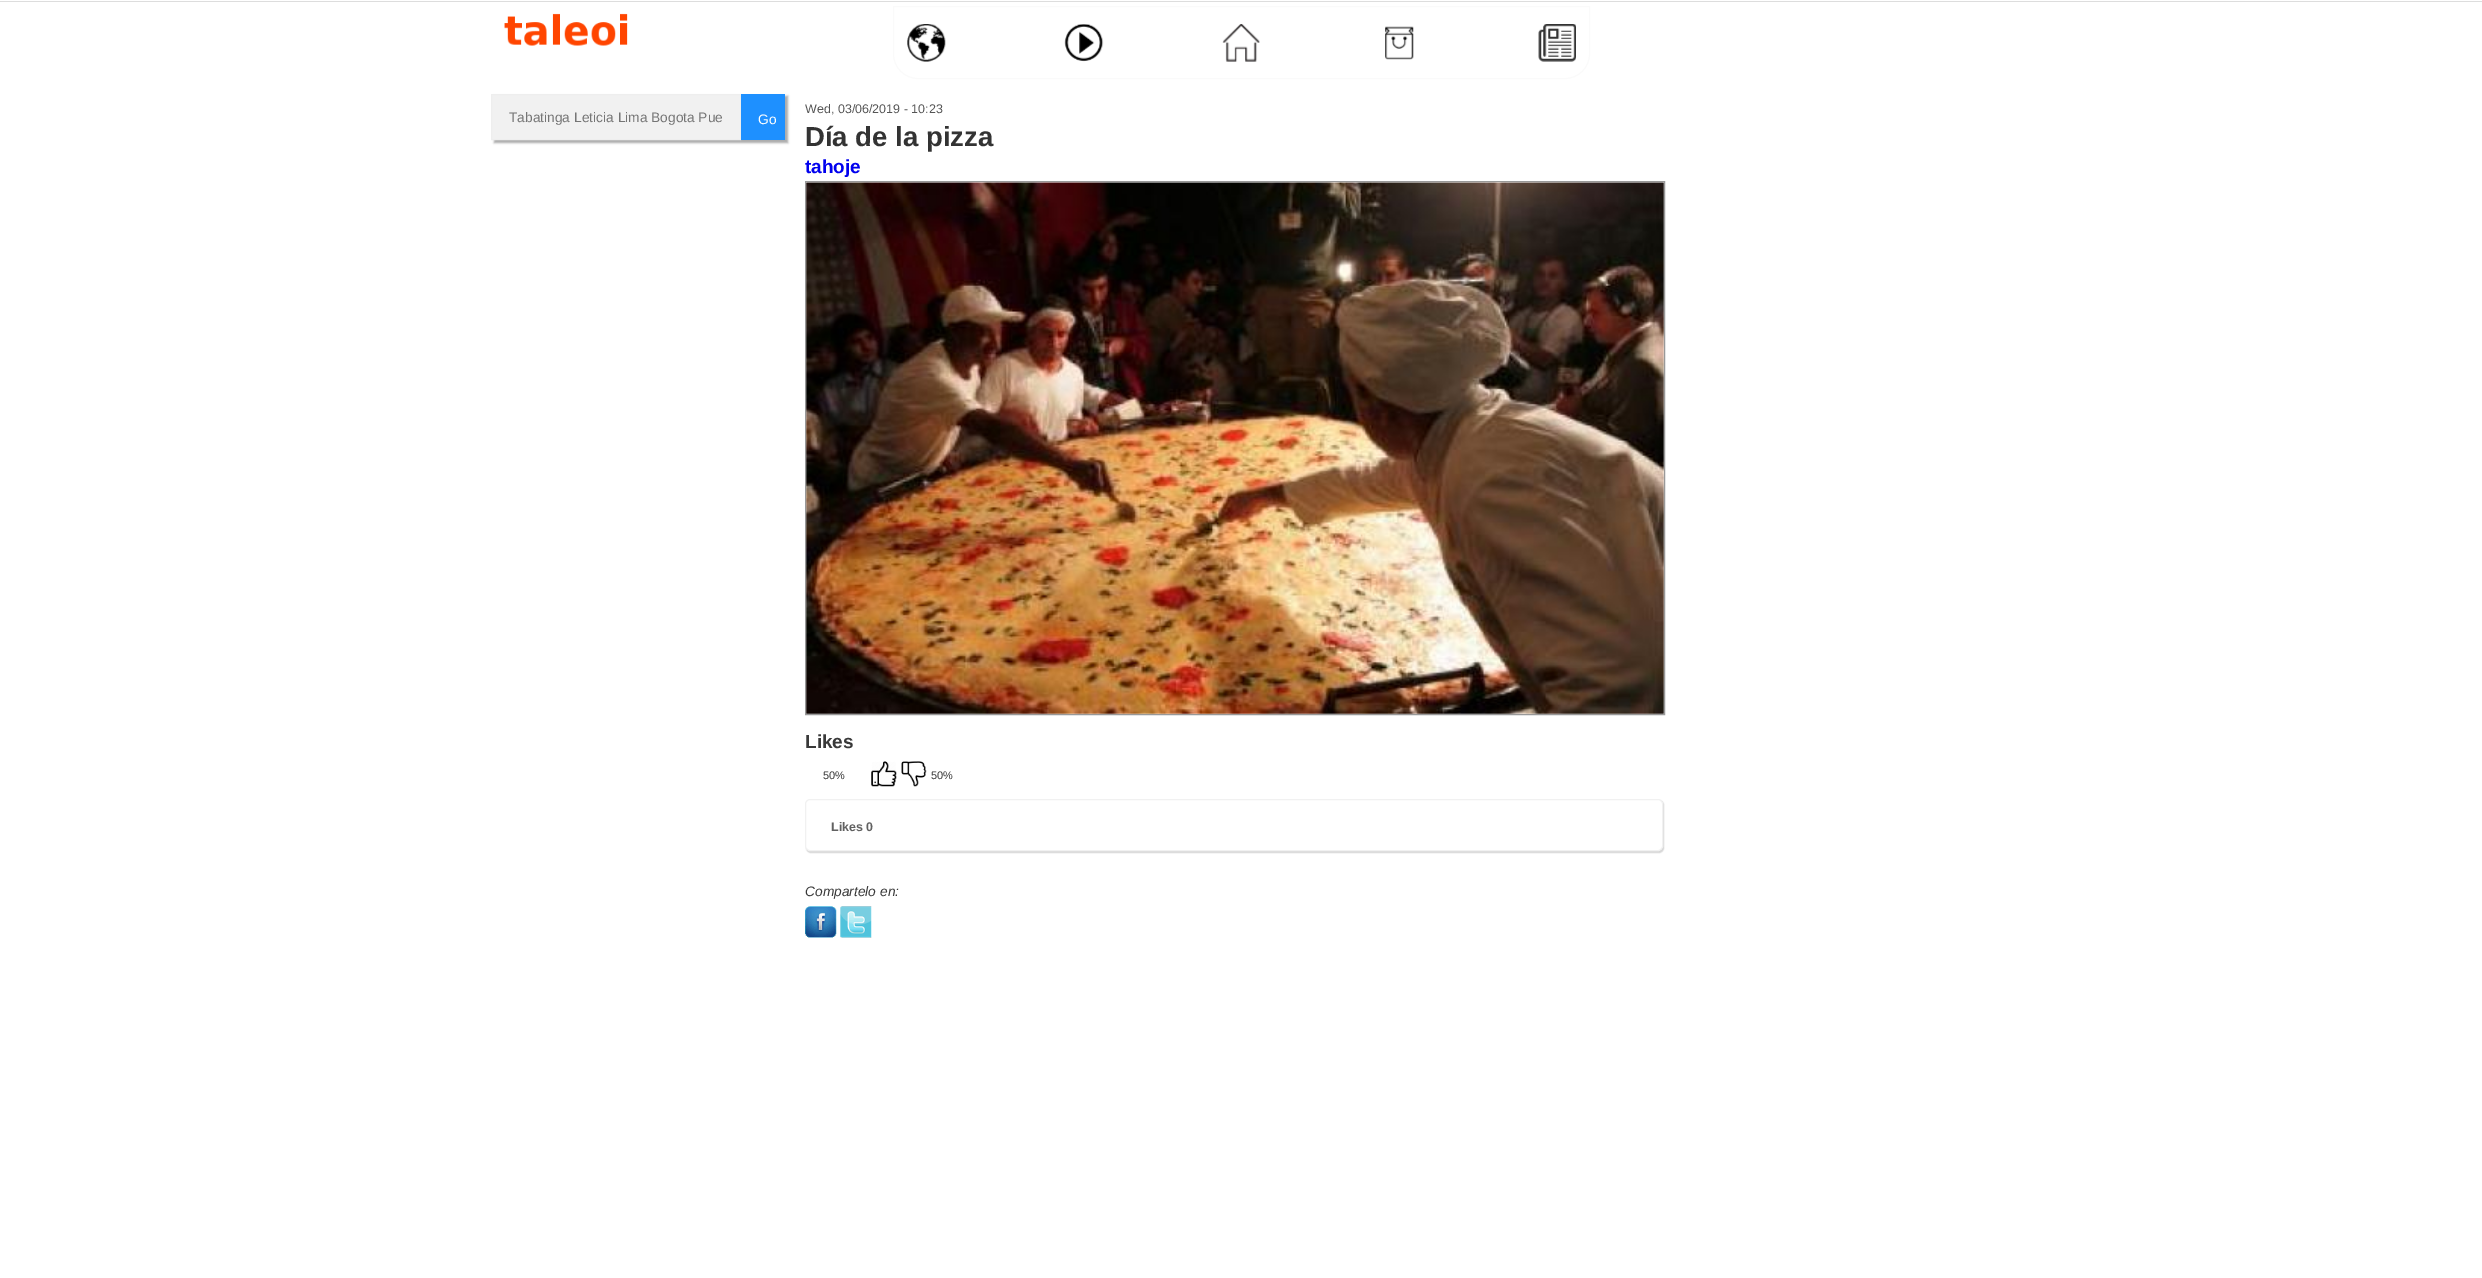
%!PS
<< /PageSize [2482 1278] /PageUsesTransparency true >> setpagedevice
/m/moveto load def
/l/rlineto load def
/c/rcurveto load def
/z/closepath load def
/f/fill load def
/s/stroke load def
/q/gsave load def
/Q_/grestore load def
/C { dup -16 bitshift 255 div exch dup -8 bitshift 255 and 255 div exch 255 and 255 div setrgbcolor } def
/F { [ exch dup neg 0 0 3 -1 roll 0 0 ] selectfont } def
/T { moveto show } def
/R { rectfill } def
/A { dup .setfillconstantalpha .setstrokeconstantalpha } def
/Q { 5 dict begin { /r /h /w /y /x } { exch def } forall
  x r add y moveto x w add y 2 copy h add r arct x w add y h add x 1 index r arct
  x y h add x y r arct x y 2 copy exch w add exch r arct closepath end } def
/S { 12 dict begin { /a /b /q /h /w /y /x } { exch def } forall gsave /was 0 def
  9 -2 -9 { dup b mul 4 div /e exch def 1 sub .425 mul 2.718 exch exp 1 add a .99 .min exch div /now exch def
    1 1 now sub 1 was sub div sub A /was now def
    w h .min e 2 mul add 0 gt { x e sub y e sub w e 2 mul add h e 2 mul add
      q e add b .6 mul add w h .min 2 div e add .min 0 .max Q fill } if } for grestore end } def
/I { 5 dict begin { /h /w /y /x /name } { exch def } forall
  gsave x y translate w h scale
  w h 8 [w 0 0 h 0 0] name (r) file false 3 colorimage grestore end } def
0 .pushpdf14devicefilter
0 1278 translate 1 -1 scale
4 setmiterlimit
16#FFFFFF C
0 0 2482 1278 R
16#DDDDDD C
0 1 2482 1 R
(1.rgb) 504 13 124 33 I
16#FAFAFA C
893.5 6.5 m 696 0 l 0 47.5 l 0 13.5 -11 24.5 -24.5 24.5 c -647 0 l -13.5 0 -24.5 -11 -24.5 -24.5 c z s
(2.rgb) 907 24 39 38 I
(3.rgb) 1064 24 40 38 I
(4.rgb) 1222 24 38 38 I
(5.rgb) 1385 26 29 34 I
(6.rgb) 1538 24 38 38 I
16#AAAAAA C
494 96 294 47 0 1 1 S
16#F1F1F1 C
491.5 94.5 m 249 0 l 0 45 l -249 0 l z q f Q_
16#EEEEEE C
s
/LiberationSans-Regular 13.75 F
16#757575 C
(Tabatinga Leticia Lima Bogota Pue) 509 122 T
16#1E90FF C
741 94 44 46 R
16#FFFFFF C
(Go) 758 124 T
/LiberationSans-Regular 12.5 F
16#555555 C
(Wed, 03/06/2019 - 10:23) 805 113 T
/LiberationSans-Bold 27.5 F
16#333333 C
(Día de la pizza) 805 146 T
/LiberationSans-Bold 19 F
16#0000EE C
(tahoje) 805 173 T
16#999999 C
805.5 181.5 859 533 rectstroke
(7.rgb) 806 182 858 532 I
16#393939 C
(Likes) 805 748 T
/LiberationSans-Regular 11 F
(50%) 823 779 T
(8.rgb) 871 761 26 26 I
(9.rgb) 901 761 26 26 I
(50%) 931 779 T
16#D6D6D6 C
806 800 858 53 5 .5 1 S
16#FFFFFF C
805.5 799.5 857 51 4.5 Q q f Q_
16#F1F1F1 C
s
/LiberationSans-Bold 12.5 F
16#616161 C
(Likes 0) 831 831 T
/LiberationSans-Italic 13.75 F
16#393939 C
(Compartelo en:) 805 896 T
(10.rgb) 805 906 32 32 I
(11.rgb) 840 906 32 32 I
.poppdf14devicefilter showpage
